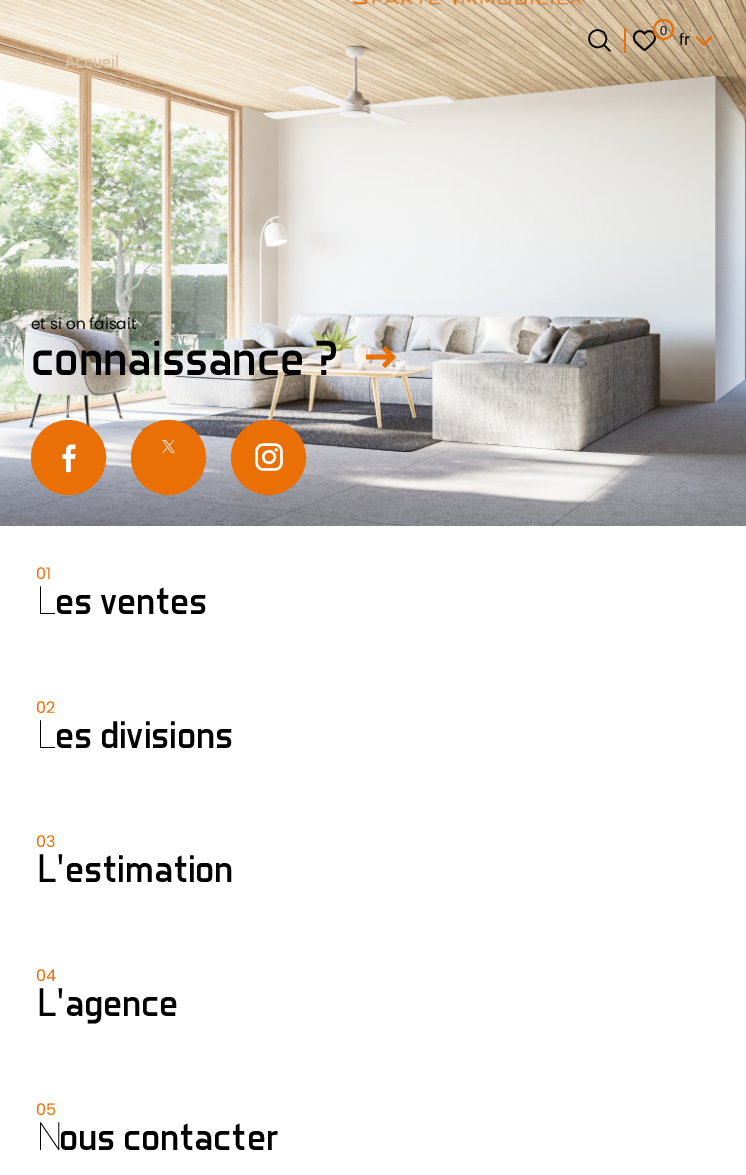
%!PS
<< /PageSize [746 1175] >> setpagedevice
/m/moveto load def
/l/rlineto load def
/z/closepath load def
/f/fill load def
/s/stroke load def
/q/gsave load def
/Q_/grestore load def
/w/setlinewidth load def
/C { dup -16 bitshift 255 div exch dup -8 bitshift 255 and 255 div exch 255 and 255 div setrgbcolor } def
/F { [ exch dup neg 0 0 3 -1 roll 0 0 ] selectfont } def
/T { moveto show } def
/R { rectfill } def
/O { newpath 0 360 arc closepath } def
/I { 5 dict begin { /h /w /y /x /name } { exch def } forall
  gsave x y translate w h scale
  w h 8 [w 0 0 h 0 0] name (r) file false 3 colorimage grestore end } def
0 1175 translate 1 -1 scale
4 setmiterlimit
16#FFFFFF C
0 0 746 1175 R
(8.rgb) 0 0 746 526 I
(1.rgb) 588 29 23 23 I
16#EA6F05 C
624 28 2 25 R
(2.rgb) 632 30 25 21 I
2 w
663.5 29.5 9.5 O s
/LiberationSans-Regular 13 F
16#000000 C
(0) 660 35 T
/Poppins-Regular 16 F
(fr) 679 45 T
16#EA6F05 C
711 36 m 1.5 1.5 l -8.5 8.5 l -1.5 -1.5 l z f
697 36 m 8.5 8.5 l -1.5 1.5 l -8.5 -8.5 l z f
/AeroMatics-Regular 19 F
16#DAC2A4 C
(Accueil) 65 68 T
(3.rgb) 352 0 231 5 I
/Poppins-Regular 15.25 F
16#000000 C
(et si on faisait) 31 329 T
/AeroMatics-Regular 50 F
(connaissance ?) 31 375 T
(4.rgb) 366 346 30 22 I
16#EA6F05 C
68.5 457.5 36.5 O q f Q_
s
(5.rgb) 62 444 14 29 I
168.5 457.5 36.5 O q f Q_
s
(6.rgb) 162 440 13 13 I
268.5 457.5 36.5 O q f Q_
s
(7.rgb) 255 443 28 28 I
/Poppins-Regular 16 F
(01) 36 579 T
/NotoSans-Thin 39 F
16#000000 C
(L) 36 614 T
/AeroMatics-Regular 39 F
(es ventes) 55 614 T
/Poppins-Regular 16 F
16#EA6F05 C
(02) 36 713 T
/NotoSans-Thin 39 F
16#000000 C
(L) 36 748 T
/AeroMatics-Regular 39 F
(es divisions) 55 748 T
/Poppins-Regular 16 F
16#EA6F05 C
(03) 36 847 T
/NotoSans-Regular 39 F
16#000000 C
(L') 36 882 T
/AeroMatics-Regular 39 F
(estimation) 65 882 T
/Poppins-Regular 16 F
16#EA6F05 C
(04) 36 981 T
/NotoSans-Regular 39 F
16#000000 C
(L') 36 1016 T
/AeroMatics-Regular 39 F
(agence) 65 1016 T
/Poppins-Regular 16 F
16#EA6F05 C
(05) 36 1115 T
/NotoSans-Thin 39 F
16#000000 C
(N) 36 1150 T
/AeroMatics-Regular 39 F
(ous contacter) 59 1150 T
showpage
